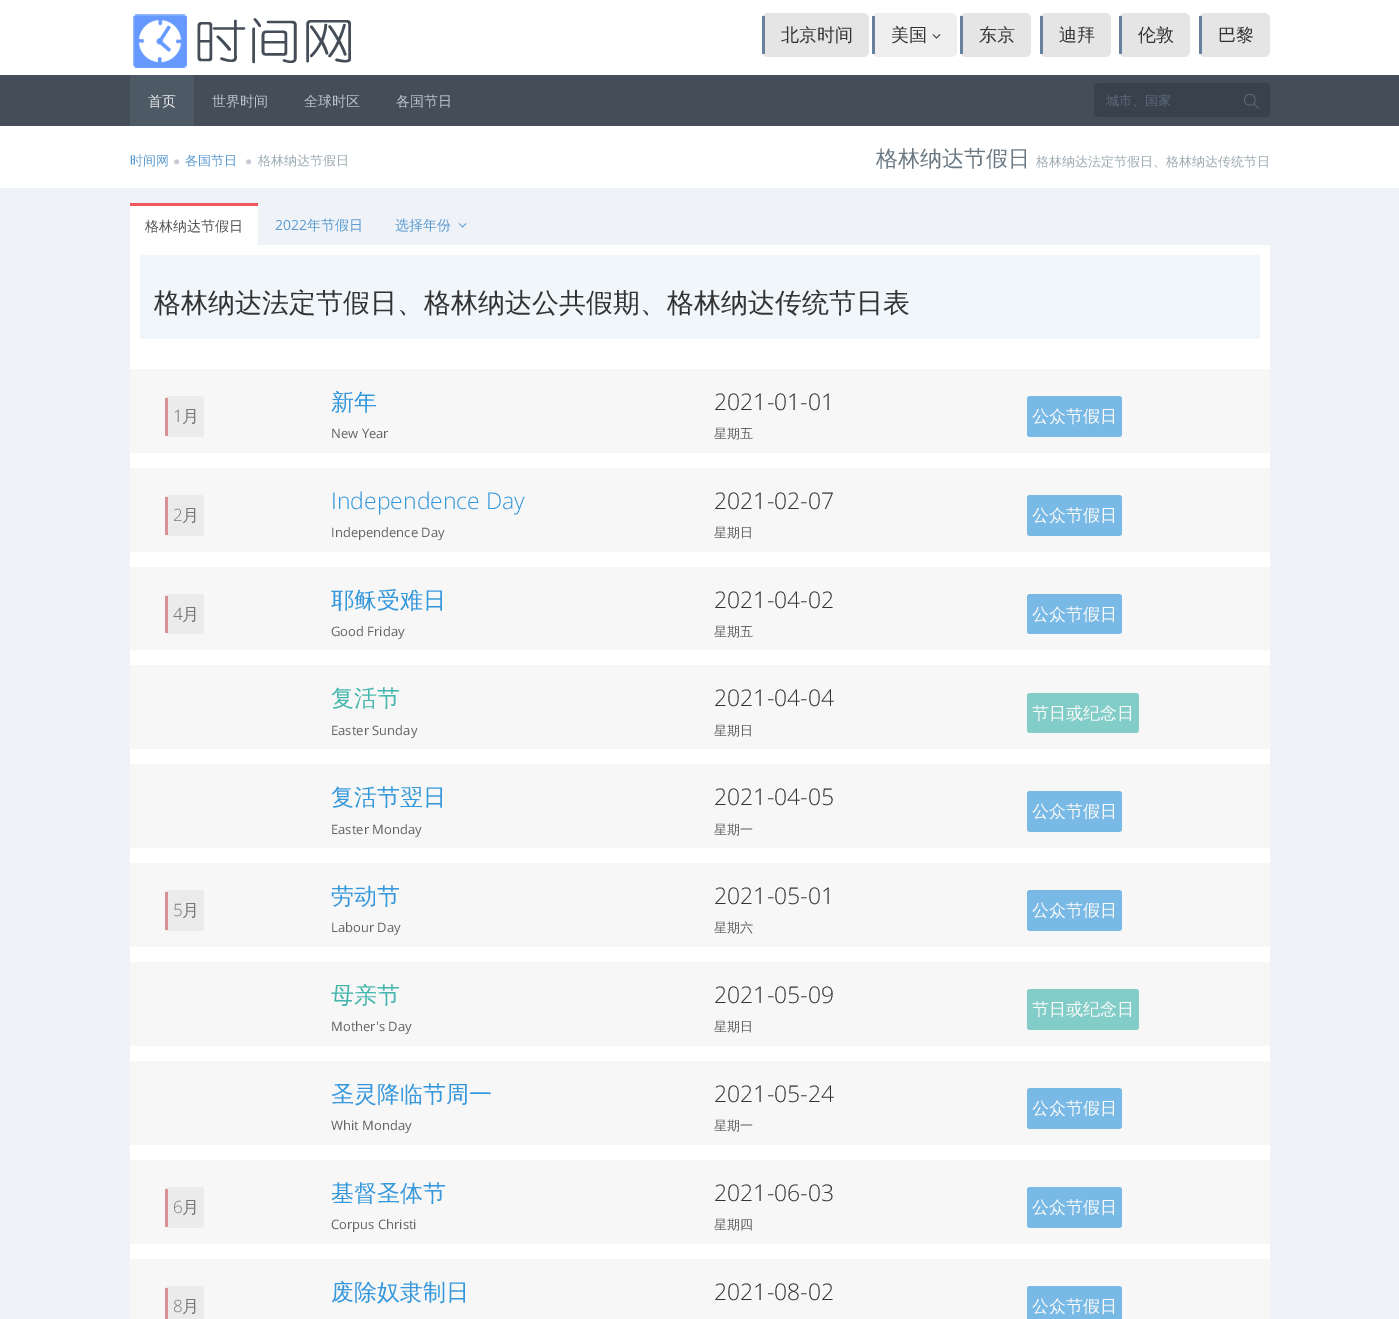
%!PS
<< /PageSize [1399 1319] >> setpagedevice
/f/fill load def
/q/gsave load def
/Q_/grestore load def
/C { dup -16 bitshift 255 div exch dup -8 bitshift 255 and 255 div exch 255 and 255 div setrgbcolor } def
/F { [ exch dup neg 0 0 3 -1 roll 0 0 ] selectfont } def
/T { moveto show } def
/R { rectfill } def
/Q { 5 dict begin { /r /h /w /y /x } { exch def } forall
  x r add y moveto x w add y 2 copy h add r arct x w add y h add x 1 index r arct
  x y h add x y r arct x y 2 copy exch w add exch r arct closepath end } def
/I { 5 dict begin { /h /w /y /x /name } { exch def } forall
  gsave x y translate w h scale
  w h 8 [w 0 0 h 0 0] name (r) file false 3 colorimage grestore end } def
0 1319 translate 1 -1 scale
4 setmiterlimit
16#FFFFFF C
0 0 1399 1319 R
(1.rgb) 133 14 218 54 I
16#E5E5E5 C
762 13 107 44 6 Q f
16#67809F C
762 16 3 38 R
/WenQuanYiZenHei-Medium 18 F
16#333333 C
(北京时间) 781 41 T
16#EFEFEF C
872 13 85 44 6 Q f
16#67809F C
872 16 3 38 R
16#333333 C
(美国) 891 41 T
(2.rgb) 932 34 9 5 I
16#E5E5E5 C
960 13 71 44 6 Q f
16#67809F C
960 16 3 38 R
16#333333 C
(东京) 979 41 T
16#E5E5E5 C
1040 13 71 44 6 Q f
16#67809F C
1040 16 3 38 R
16#333333 C
(迪拜) 1059 41 T
16#E5E5E5 C
1119 13 71 44 6 Q f
16#67809F C
1119 16 3 38 R
16#333333 C
(伦敦) 1138 41 T
16#E5E5E5 C
1199 13 71 44 6 Q f
16#67809F C
1199 16 3 38 R
16#333333 C
(巴黎) 1218 41 T
16#444D58 C
0 75 1399 51 R
16#4E5966 C
130 75 64 51 R
/WenQuanYiZenHei-Medium 14 F
16#F1F1F1 C
(首页) 148 106 T
16#BCC2CB C
(世界时间) 212 106 T
(全球时区) 304 106 T
(各国节日) 396 106 T
16#38414C C
1094 83 176 34 4 Q f
q
1106 91 130 19 rectclip
/WenQuanYiZenHei-Medium 13 F
16#5F6A7A C
(城市、国家) 1106 105 T
Q_
(3.rgb) 1244 94 15 15 I
/WenQuanYiZenHei-Medium 13 F
16#5B9BD1 C
(时间网) 130 165 T
(4.rgb) 174 159 6 6 I
(各国节日) 185 165 T
(4.rgb) 246 159 6 6 I
16#9EACB4 C
(格林纳达节假日) 258 165 T
/WenQuanYiZenHei-Medium 22 F
16#697882 C
(格林纳达节假日) 876 166 T
/WenQuanYiZenHei-Medium 13 F
16#9EACB4 C
(格林纳达法定节假日、格林纳达传统节日) 1036 166 T
16#EFF3F8 C
0 188 1399 1131 R
16#F3565D C
130 203 128 3 R
16#FFFFFF C
130 206 128 39 R
/WenQuanYiZenHei-Medium 14 F
16#555555 C
(格林纳达节假日) 145 231 T
/OpenSans-Regular 14 F
16#5B9BD1 C
(2022) 275 230 T
/WenQuanYiZenHei-Medium 14 F
(年节假日) 307 230 T
(选择年份) 395 230 T
(5.rgb) 458 223 9 5 I
16#FFFFFF C
130 245 1140 1014 R
16#F0F6FA C
140 255 1120 84 R
/WenQuanYiZenHei-Medium 27 F
16#333333 C
(格林纳达法定节假日、格林纳达公共假期、格林纳达传统节日表) 154 312 T
16#F7F7F7 C
130 369 1140 84 R
16#EBEBEB C
165 396 39 41 3 Q f
16#DA9194 C
165 398 3 38 R
/OpenSans-Light 17 F
16#787878 C
(1) 173 422 T
/WenQuanYiZenHei-Medium 17 F
(月) 182 422 T
/WenQuanYiZenHei-Medium 23 F
16#3598DC C
(新年) 331 410 T
/OpenSans-Regular 13 F
16#636363 C
(New Year) 331 438 T
/OpenSans-Light 23 F
16#333333 C
(2021-01-01) 714 410 T
/WenQuanYiZenHei-Medium 13 F
16#636363 C
(星期五) 714 438 T
16#79B9E5 C
1027 396 95 41 3 Q f
/WenQuanYiZenHei-Medium 17 F
16#FCFCFC C
(公众节假日) 1032 422 T
16#F7F7F7 C
130 468 1140 84 R
16#EBEBEB C
165 495 39 41 3 Q f
16#DA9194 C
165 497 3 38 R
/OpenSans-Light 17 F
16#787878 C
(2) 173 521 T
/WenQuanYiZenHei-Medium 17 F
(月) 182 521 T
/OpenSans-Light 23 F
16#3598DC C
(Independence Day) 331 509 T
/OpenSans-Regular 13 F
16#636363 C
(Independence Day) 331 537 T
/OpenSans-Light 23 F
16#333333 C
(2021-02-07) 714 509 T
/WenQuanYiZenHei-Medium 13 F
16#636363 C
(星期日) 714 537 T
16#79B9E5 C
1027 495 95 41 3 Q f
/WenQuanYiZenHei-Medium 17 F
16#FCFCFC C
(公众节假日) 1032 521 T
16#F7F7F7 C
130 567 1140 83 R
16#EBEBEB C
165 594 39 40 3 Q f
16#DA9194 C
165 596 3 37 R
/OpenSans-Light 17 F
16#787878 C
(4) 173 620 T
/WenQuanYiZenHei-Medium 17 F
(月) 182 620 T
/WenQuanYiZenHei-Medium 23 F
16#3598DC C
(耶稣受难日) 331 608 T
/OpenSans-Regular 13 F
16#636363 C
(Good Friday) 331 636 T
/OpenSans-Light 23 F
16#333333 C
(2021-04-02) 714 608 T
/WenQuanYiZenHei-Medium 13 F
16#636363 C
(星期五) 714 636 T
16#79B9E5 C
1027 594 95 40 3 Q f
/WenQuanYiZenHei-Medium 17 F
16#FCFCFC C
(公众节假日) 1032 620 T
16#F7F7F7 C
130 665 1140 84 R
/WenQuanYiZenHei-Medium 23 F
16#44B6AE C
(复活节) 331 706 T
/OpenSans-Regular 13 F
16#636363 C
(Easter Sunday) 331 735 T
/OpenSans-Light 23 F
16#333333 C
(2021-04-04) 714 706 T
/WenQuanYiZenHei-Medium 13 F
16#636363 C
(星期日) 714 735 T
16#83CDC8 C
1027 693 112 40 3 Q f
/WenQuanYiZenHei-Medium 17 F
16#FCFCFC C
(节日或纪念日) 1032 719 T
16#F7F7F7 C
130 764 1140 84 R
/WenQuanYiZenHei-Medium 23 F
16#3598DC C
(复活节翌日) 331 805 T
/OpenSans-Regular 13 F
16#636363 C
(Easter Monday) 331 834 T
/OpenSans-Light 23 F
16#333333 C
(2021-04-05) 714 805 T
/WenQuanYiZenHei-Medium 13 F
16#636363 C
(星期一) 714 834 T
16#79B9E5 C
1027 791 95 41 3 Q f
/WenQuanYiZenHei-Medium 17 F
16#FCFCFC C
(公众节假日) 1032 817 T
16#F7F7F7 C
130 863 1140 84 R
16#EBEBEB C
165 890 39 41 3 Q f
16#DA9194 C
165 892 3 38 R
/OpenSans-Light 17 F
16#787878 C
(5) 173 916 T
/WenQuanYiZenHei-Medium 17 F
(月) 182 916 T
/WenQuanYiZenHei-Medium 23 F
16#3598DC C
(劳动节) 331 904 T
/OpenSans-Regular 13 F
16#636363 C
(Labour Day) 331 932 T
/OpenSans-Light 23 F
16#333333 C
(2021-05-01) 714 904 T
/WenQuanYiZenHei-Medium 13 F
16#636363 C
(星期六) 714 932 T
16#79B9E5 C
1027 890 95 41 3 Q f
/WenQuanYiZenHei-Medium 17 F
16#FCFCFC C
(公众节假日) 1032 916 T
16#F7F7F7 C
130 962 1140 84 R
/WenQuanYiZenHei-Medium 23 F
16#44B6AE C
(母亲节) 331 1003 T
/OpenSans-Regular 13 F
16#636363 C
(Mother's Day) 331 1031 T
/OpenSans-Light 23 F
16#333333 C
(2021-05-09) 714 1003 T
/WenQuanYiZenHei-Medium 13 F
16#636363 C
(星期日) 714 1031 T
16#83CDC8 C
1027 989 112 41 3 Q f
/WenQuanYiZenHei-Medium 17 F
16#FCFCFC C
(节日或纪念日) 1032 1015 T
16#F7F7F7 C
130 1061 1140 84 R
/WenQuanYiZenHei-Medium 23 F
16#3598DC C
(圣灵降临节周一) 331 1102 T
/OpenSans-Regular 13 F
16#636363 C
(Whit Monday) 331 1130 T
/OpenSans-Light 23 F
16#333333 C
(2021-05-24) 714 1102 T
/WenQuanYiZenHei-Medium 13 F
16#636363 C
(星期一) 714 1130 T
16#79B9E5 C
1027 1088 95 41 3 Q f
/WenQuanYiZenHei-Medium 17 F
16#FCFCFC C
(公众节假日) 1032 1114 T
16#F7F7F7 C
130 1160 1140 84 R
16#EBEBEB C
165 1187 39 41 3 Q f
16#DA9194 C
165 1189 3 38 R
/OpenSans-Light 17 F
16#787878 C
(6) 173 1213 T
/WenQuanYiZenHei-Medium 17 F
(月) 182 1213 T
/WenQuanYiZenHei-Medium 23 F
16#3598DC C
(基督圣体节) 331 1201 T
/OpenSans-Regular 13 F
16#636363 C
(Corpus Christi) 331 1229 T
/OpenSans-Light 23 F
16#333333 C
(2021-06-03) 714 1201 T
/WenQuanYiZenHei-Medium 13 F
16#636363 C
(星期四) 714 1229 T
16#79B9E5 C
1027 1187 95 41 3 Q f
/WenQuanYiZenHei-Medium 17 F
16#FCFCFC C
(公众节假日) 1032 1213 T
16#F7F7F7 C
130 1259 1140 60 R
/WenQuanYiZenHei-Medium 23 F
16#3598DC C
(废除奴隶制日) 331 1300 T
/OpenSans-Light 23 F
16#333333 C
(2021-08-02) 714 1300 T
16#EBEBEB C
165 1286 39 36 3 Q f
16#DA9194 C
165 1288 3 31 R
/OpenSans-Light 17 F
16#787878 C
(8) 173 1312 T
/WenQuanYiZenHei-Medium 17 F
(月) 182 1312 T
16#79B9E5 C
1027 1286 95 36 3 Q f
16#FCFCFC C
(公众节假日) 1032 1312 T
showpage
